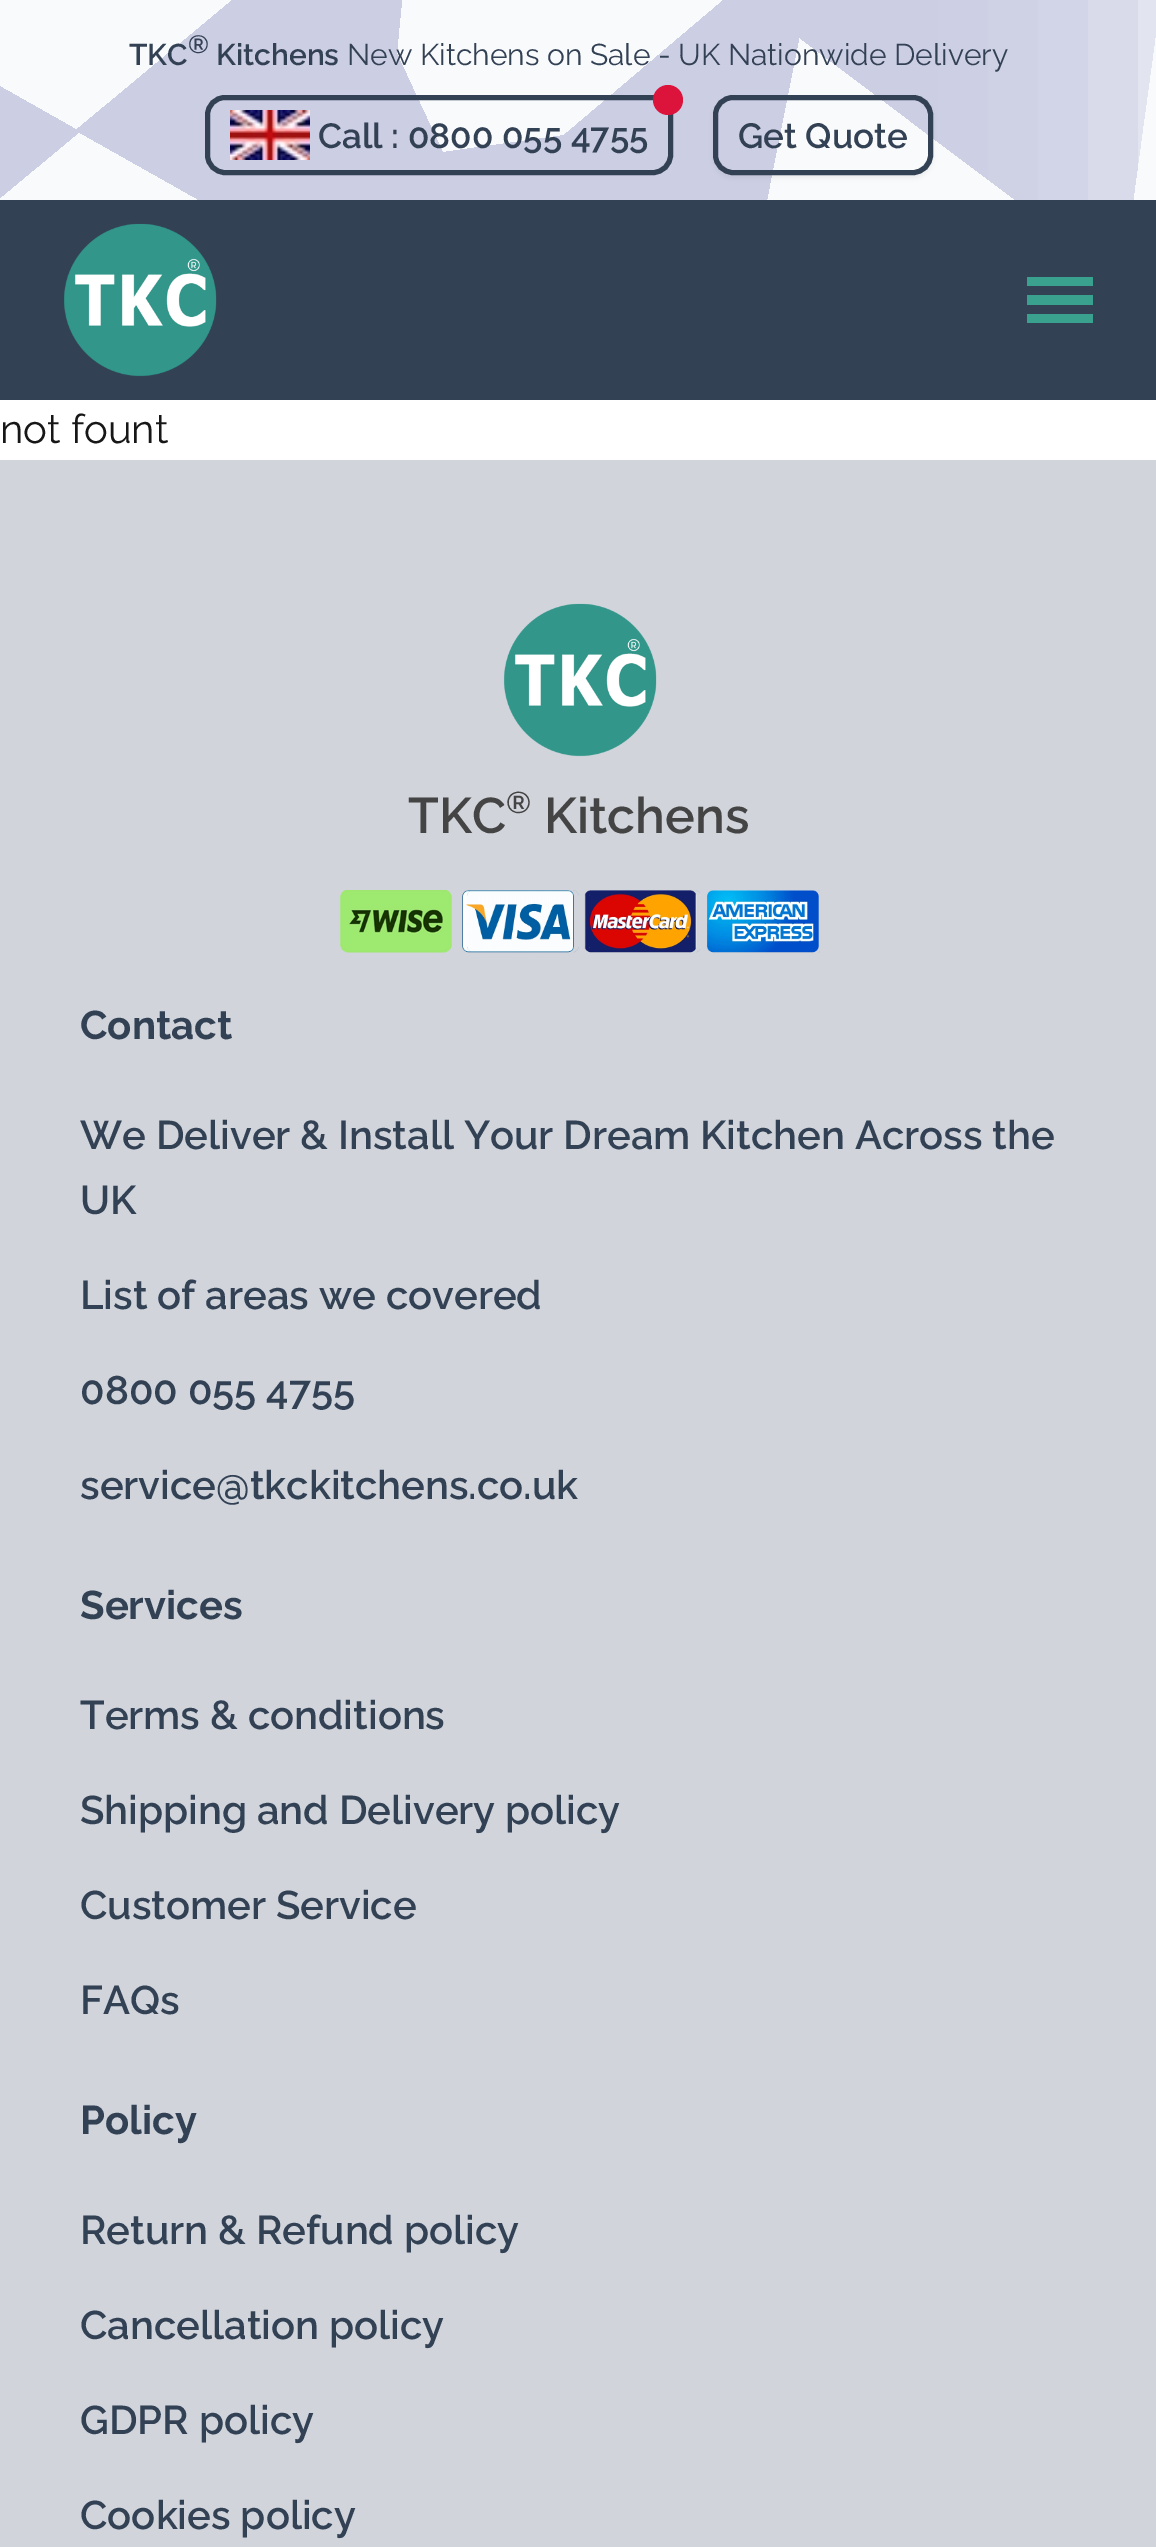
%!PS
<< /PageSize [1156 2547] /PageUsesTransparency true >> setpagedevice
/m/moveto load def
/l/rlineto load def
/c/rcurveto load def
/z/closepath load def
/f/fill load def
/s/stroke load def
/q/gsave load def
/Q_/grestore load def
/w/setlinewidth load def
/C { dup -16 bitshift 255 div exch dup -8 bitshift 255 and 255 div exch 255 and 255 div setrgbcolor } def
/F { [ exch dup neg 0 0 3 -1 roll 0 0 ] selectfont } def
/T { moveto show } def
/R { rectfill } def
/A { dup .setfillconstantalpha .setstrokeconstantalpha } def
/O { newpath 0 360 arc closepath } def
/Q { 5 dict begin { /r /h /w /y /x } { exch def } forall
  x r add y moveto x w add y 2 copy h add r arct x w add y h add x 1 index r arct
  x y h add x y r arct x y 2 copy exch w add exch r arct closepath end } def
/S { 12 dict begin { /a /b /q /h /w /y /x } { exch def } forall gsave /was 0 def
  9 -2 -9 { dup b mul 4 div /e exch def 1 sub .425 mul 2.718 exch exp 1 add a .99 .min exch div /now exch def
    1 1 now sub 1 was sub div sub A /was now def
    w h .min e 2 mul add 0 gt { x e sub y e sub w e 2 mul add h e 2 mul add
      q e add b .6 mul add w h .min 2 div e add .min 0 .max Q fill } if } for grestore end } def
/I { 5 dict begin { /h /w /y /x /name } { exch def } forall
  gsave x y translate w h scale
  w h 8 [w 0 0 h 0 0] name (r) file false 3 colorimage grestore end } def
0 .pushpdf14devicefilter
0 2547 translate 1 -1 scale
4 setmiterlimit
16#FFFFFF C
0 0 1156 2547 R
16#334155 C
0 200 1156 200 R
16#F9FAFB C
0 0 1156 200 R
(2.rgb) 64 223 153 154 I
16#D1D5DB C
0 460 1156 2087 R
(3.rgb) 503 603 154 154 I
q
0 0 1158 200 rectclip
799 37 m 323 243 l 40.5 -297 l -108 -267.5 l -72.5 -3 l -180 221.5 l -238 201.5 l -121.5 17 l -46 -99 l 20 -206 l -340 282.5 l -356.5 -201.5 l 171.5 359 l 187.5 -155.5 l 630.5 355.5 l z clip newpath
16#CBCDE3 C
-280 -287 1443 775 0 100 1 S
Q_
/Raleway-SemiBold 30 F
16#334155 C
(TKC) 129 65 T
/Raleway-SemiBold 25 F
(®) 188 53 T
/Raleway-SemiBold 30 F
(Kitchens) 216 65 T
/Raleway-Regular 30 F
(New Kitchens on Sale - UK Nationwide Delivery) 347 65 T
5 w
207.5 97.5 463 75 17.5 Q s
16#DC143C C
668 100 15 O f
(1.rgb) 230 110 80 50 I
/Raleway-SemiBold 35 F
16#334155 C
(Call : 0800 055 4755) 318 148 T
q
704 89 m 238 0 l 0 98 l -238 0 l z 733 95 m 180 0 l 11 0 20 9 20 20 c 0 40 l 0 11 -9 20 -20 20 c -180 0 l -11 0 -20 -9 -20 -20 c 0 -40 l 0 -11 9 -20 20 -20 c z eoclip newpath
16#000000 C
713 98 220 80 20 2.5 .05 S
Q_
715.5 97.5 215 75 17.5 Q s
(Get Quote) 738 148 T
16#3AA18E C
1027 277 m 0 9 l 66 0 l 0 -9 l z 1027 295 m 0 10 l 66 0 l 0 -10 l z 1027 314 m 0 9 l 66 0 l 0 -9 l z f
/Raleway-Regular 40 F
16#171717 C
(not fount) 0 443 T
/Raleway-SemiBold 50 F
16#444444 C
(TKC) 408 833 T
/Raleway-SemiBold 30 F
(®) 506 813 T
/Raleway-SemiBold 50 F
(Kitchens) 544 833 T
(4.rgb) 340 890 480 63 I
/Raleway-Bold 40 F
16#334155 C
(Contact) 80 1039 T
/Raleway-SemiBold 40 F
(We Deliver & Install Your Dream Kitchen Across the) 80 1149 T
(UK) 80 1214 T
(List of areas we covered) 80 1309 T
(0800 055 4755) 80 1404 T
(service@tkckitchens.co.uk) 80 1499 T
/Raleway-Bold 40 F
(Services) 80 1619 T
/Raleway-SemiBold 40 F
(Terms & conditions) 80 1729 T
(Shipping and Delivery policy) 80 1824 T
(Customer Service) 80 1919 T
(FAQs) 80 2014 T
/Raleway-Bold 40 F
(Policy) 80 2134 T
/Raleway-SemiBold 40 F
(Return & Refund policy) 80 2244 T
(Cancellation policy) 80 2339 T
(GDPR policy) 80 2434 T
(Cookies policy) 80 2529 T
.poppdf14devicefilter showpage
